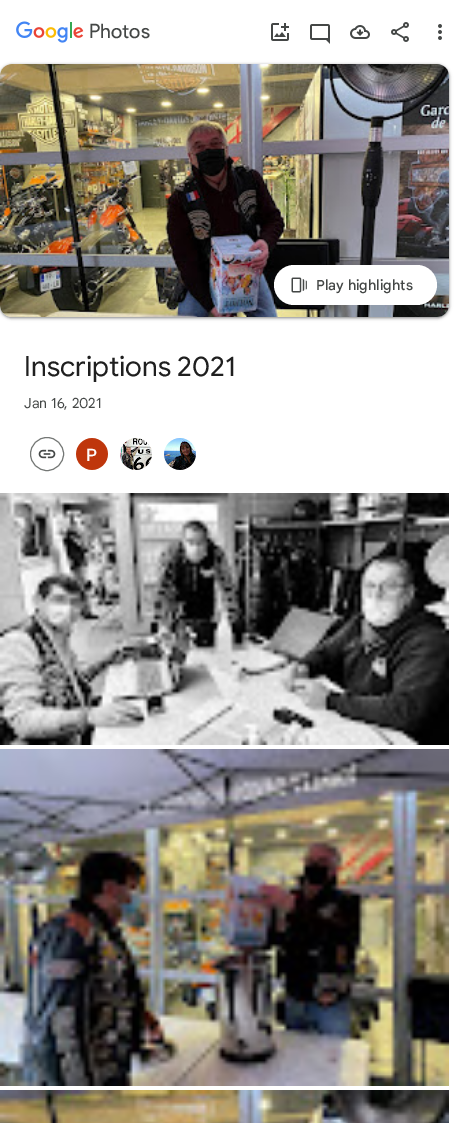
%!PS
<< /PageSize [464 1123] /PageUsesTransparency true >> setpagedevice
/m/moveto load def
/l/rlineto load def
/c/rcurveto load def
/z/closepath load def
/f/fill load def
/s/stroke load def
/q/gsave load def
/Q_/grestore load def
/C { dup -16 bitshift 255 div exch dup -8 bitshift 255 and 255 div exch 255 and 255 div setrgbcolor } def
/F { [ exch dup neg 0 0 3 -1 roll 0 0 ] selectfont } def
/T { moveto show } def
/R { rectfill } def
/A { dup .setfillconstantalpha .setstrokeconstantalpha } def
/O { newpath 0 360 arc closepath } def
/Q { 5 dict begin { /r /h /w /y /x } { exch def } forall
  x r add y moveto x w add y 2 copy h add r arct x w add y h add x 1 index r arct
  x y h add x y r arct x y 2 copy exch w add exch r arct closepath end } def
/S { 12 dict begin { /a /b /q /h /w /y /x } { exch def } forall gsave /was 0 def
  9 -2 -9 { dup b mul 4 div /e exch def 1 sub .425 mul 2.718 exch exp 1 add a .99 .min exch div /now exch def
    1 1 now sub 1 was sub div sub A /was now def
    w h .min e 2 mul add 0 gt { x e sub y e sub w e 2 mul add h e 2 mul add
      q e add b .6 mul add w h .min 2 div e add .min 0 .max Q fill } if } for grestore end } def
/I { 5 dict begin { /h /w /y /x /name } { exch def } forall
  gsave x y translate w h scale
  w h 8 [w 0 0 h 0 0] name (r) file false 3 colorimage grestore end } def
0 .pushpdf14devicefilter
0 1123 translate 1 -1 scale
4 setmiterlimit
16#FFFFFF C
0 0 464 1123 R
(1.rgb) 16 21 68 22 I
/ProductSans-Regular 20 F
16#444746 C
(Photos) 89 38 T
(2.rgb) 271 23 18 18 I
(3.rgb) 310 24 20 20 I
(4.rgb) 350 25 20 14 I
(5.rgb) 391 22 18 20 I
(6.rgb) 438 24 4 16 I
q
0 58 m 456 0 l 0 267 l -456 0 l z 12 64 m 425 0 l 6.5 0 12 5.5 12 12 c 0 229 l 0 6.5 -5.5 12 -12 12 c -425 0 l -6.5 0 -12 -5.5 -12 -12 c 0 -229 l 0 -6.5 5.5 -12 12 -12 c z eoclip newpath
16#000000 C
-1 64 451 255 13 1.5 .15 S
Q_
16#000000 C
0 65 449 253 12 1 .3 S
(7.rgb) 0 64 449 253 I
16#FFFFFF C
274 265 163 40 20 Q f
(8.rgb) 291 277 16 16 I
/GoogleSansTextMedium-Medium 14 F
16#444746 C
(Play highlights) 316 290 T
/GoogleSans-Regular 28 F
16#1F1F1F C
(Inscriptions 2021) 24 376 T
/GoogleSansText-Regular 14 F
16#444746 C
(Jan 16, 2021) 24 408 T
16#747775 C
47 454 16.5 O s
(9.rgb) 38 449 18 10 I
(10.rgb) 76 438 32 32 I
(11.rgb) 120 438 32 32 I
(12.rgb) 164 438 32 32 I
(13.rgb) 0 493 449 252 I
(14.rgb) 0 749 449 337 I
(15.rgb) 0 1090 449 33 I
.poppdf14devicefilter showpage
